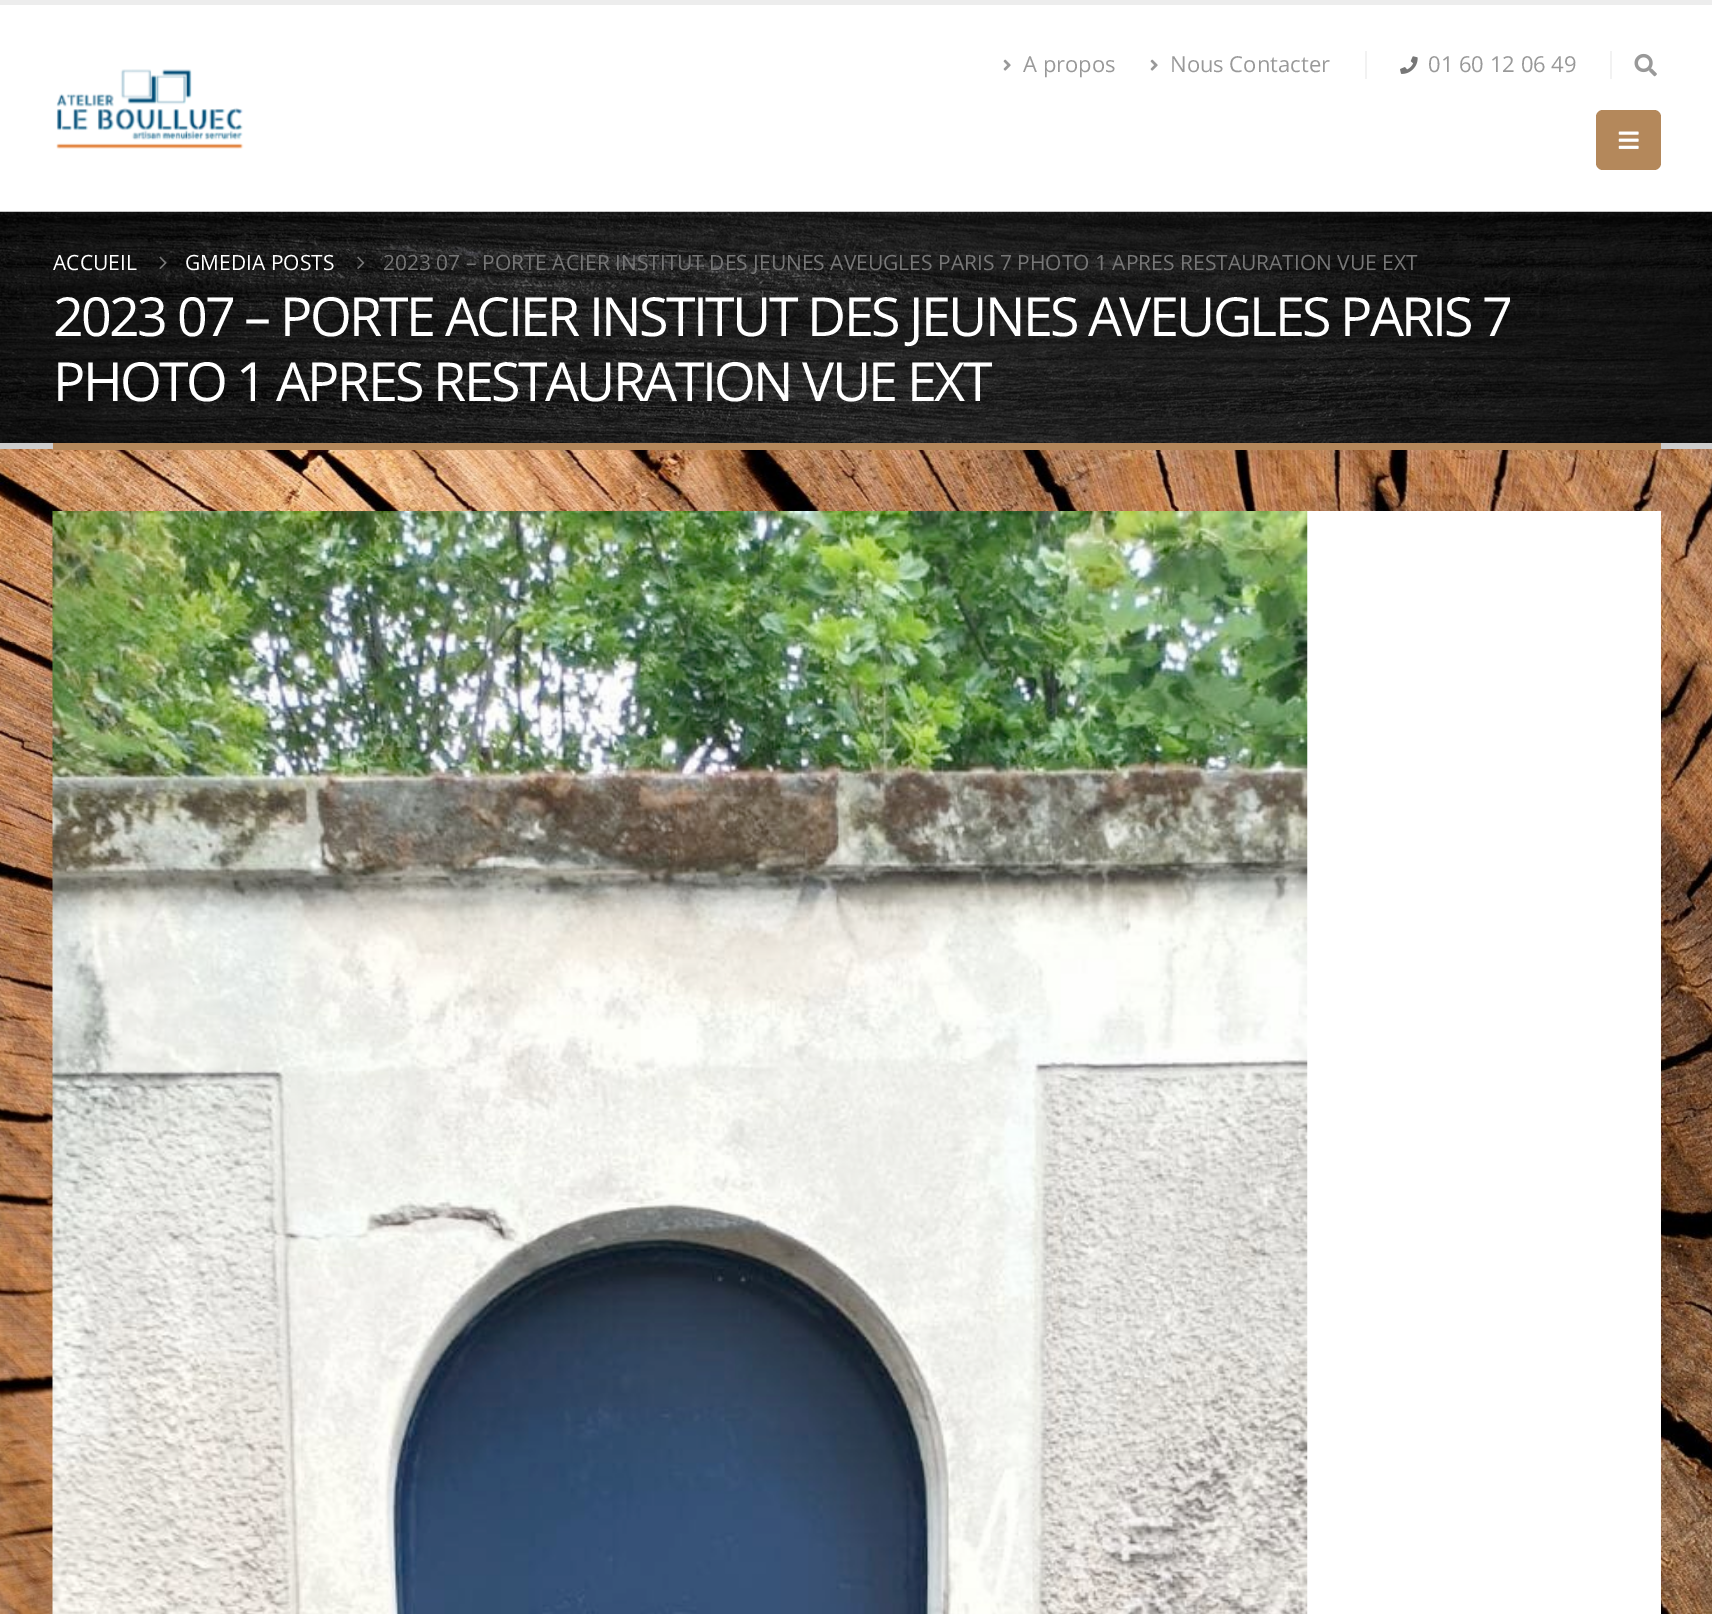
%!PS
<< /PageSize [1712 1614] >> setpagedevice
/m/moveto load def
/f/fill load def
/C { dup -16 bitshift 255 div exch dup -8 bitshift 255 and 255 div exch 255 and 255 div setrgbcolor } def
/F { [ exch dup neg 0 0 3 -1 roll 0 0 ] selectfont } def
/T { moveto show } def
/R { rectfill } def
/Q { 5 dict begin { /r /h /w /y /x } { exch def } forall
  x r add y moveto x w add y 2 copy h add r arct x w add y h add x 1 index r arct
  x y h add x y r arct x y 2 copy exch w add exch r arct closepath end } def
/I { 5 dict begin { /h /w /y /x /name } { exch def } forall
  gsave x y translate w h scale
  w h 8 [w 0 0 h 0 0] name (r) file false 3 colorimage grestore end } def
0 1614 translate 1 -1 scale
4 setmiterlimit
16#FFFFFF C
0 0 1712 1614 R
16#EDEDED C
0 0 1712 5 R
(1.rgb) 56 69 188 80 I
(2.rgb) 1003 59 8 12 I
/OpenSans-Regular 22 F
16#999999 C
(A propos) 1023 72 T
(2.rgb) 1150 59 8 12 I
(Nous Contacter) 1170 72 T
16#F2F2F2 C
1365 51 2 28 R
(3.rgb) 1400 56 18 18 I
16#999999 C
(01 60 12 06 49) 1428 72 T
16#F2F2F2 C
1610 51 2 28 R
(4.rgb) 1634 53 23 24 I
16#B4885B C
1596 110 65 60 7 Q f
(5.rgb) 1618 131 21 18 I
(6.rgb) 0 211 1712 232 I
16#CCCCCC C
0 443 1712 6 R
/OpenSans-Regular 21 F
16#FFFFFF C
(ACCUEIL) 53 270 T
(7.rgb) 159 256 8 13 I
(GMEDIA POSTS) 185 270 T
(8.rgb) 357 256 8 13 I
16#777777 C
(2023 07 – PORTE ACIER INSTITUT DES JEUNES AVEUGLES PARIS 7 PHOTO 1 APRES RESTAURATION VUE EXT) 383 270 T
/OpenSans-Regular 53.9 F
16#FFFFFF C
53 336 m -2.7 0 (2023 07 – PORTE ACIER INSTITUT DES JEUNES AVEUGLES PARIS 7) ashow
53 401 m -2.7 0 (PHOTO 1 APRES RESTAURATION VUE EXT) ashow
(9.rgb) 0 449 1712 1165 I
16#B4885B C
53 443 1608 7 R
16#FFFFFF C
1307 511 354 1103 R
(10.rgb) 52 511 1256 1103 I
showpage
